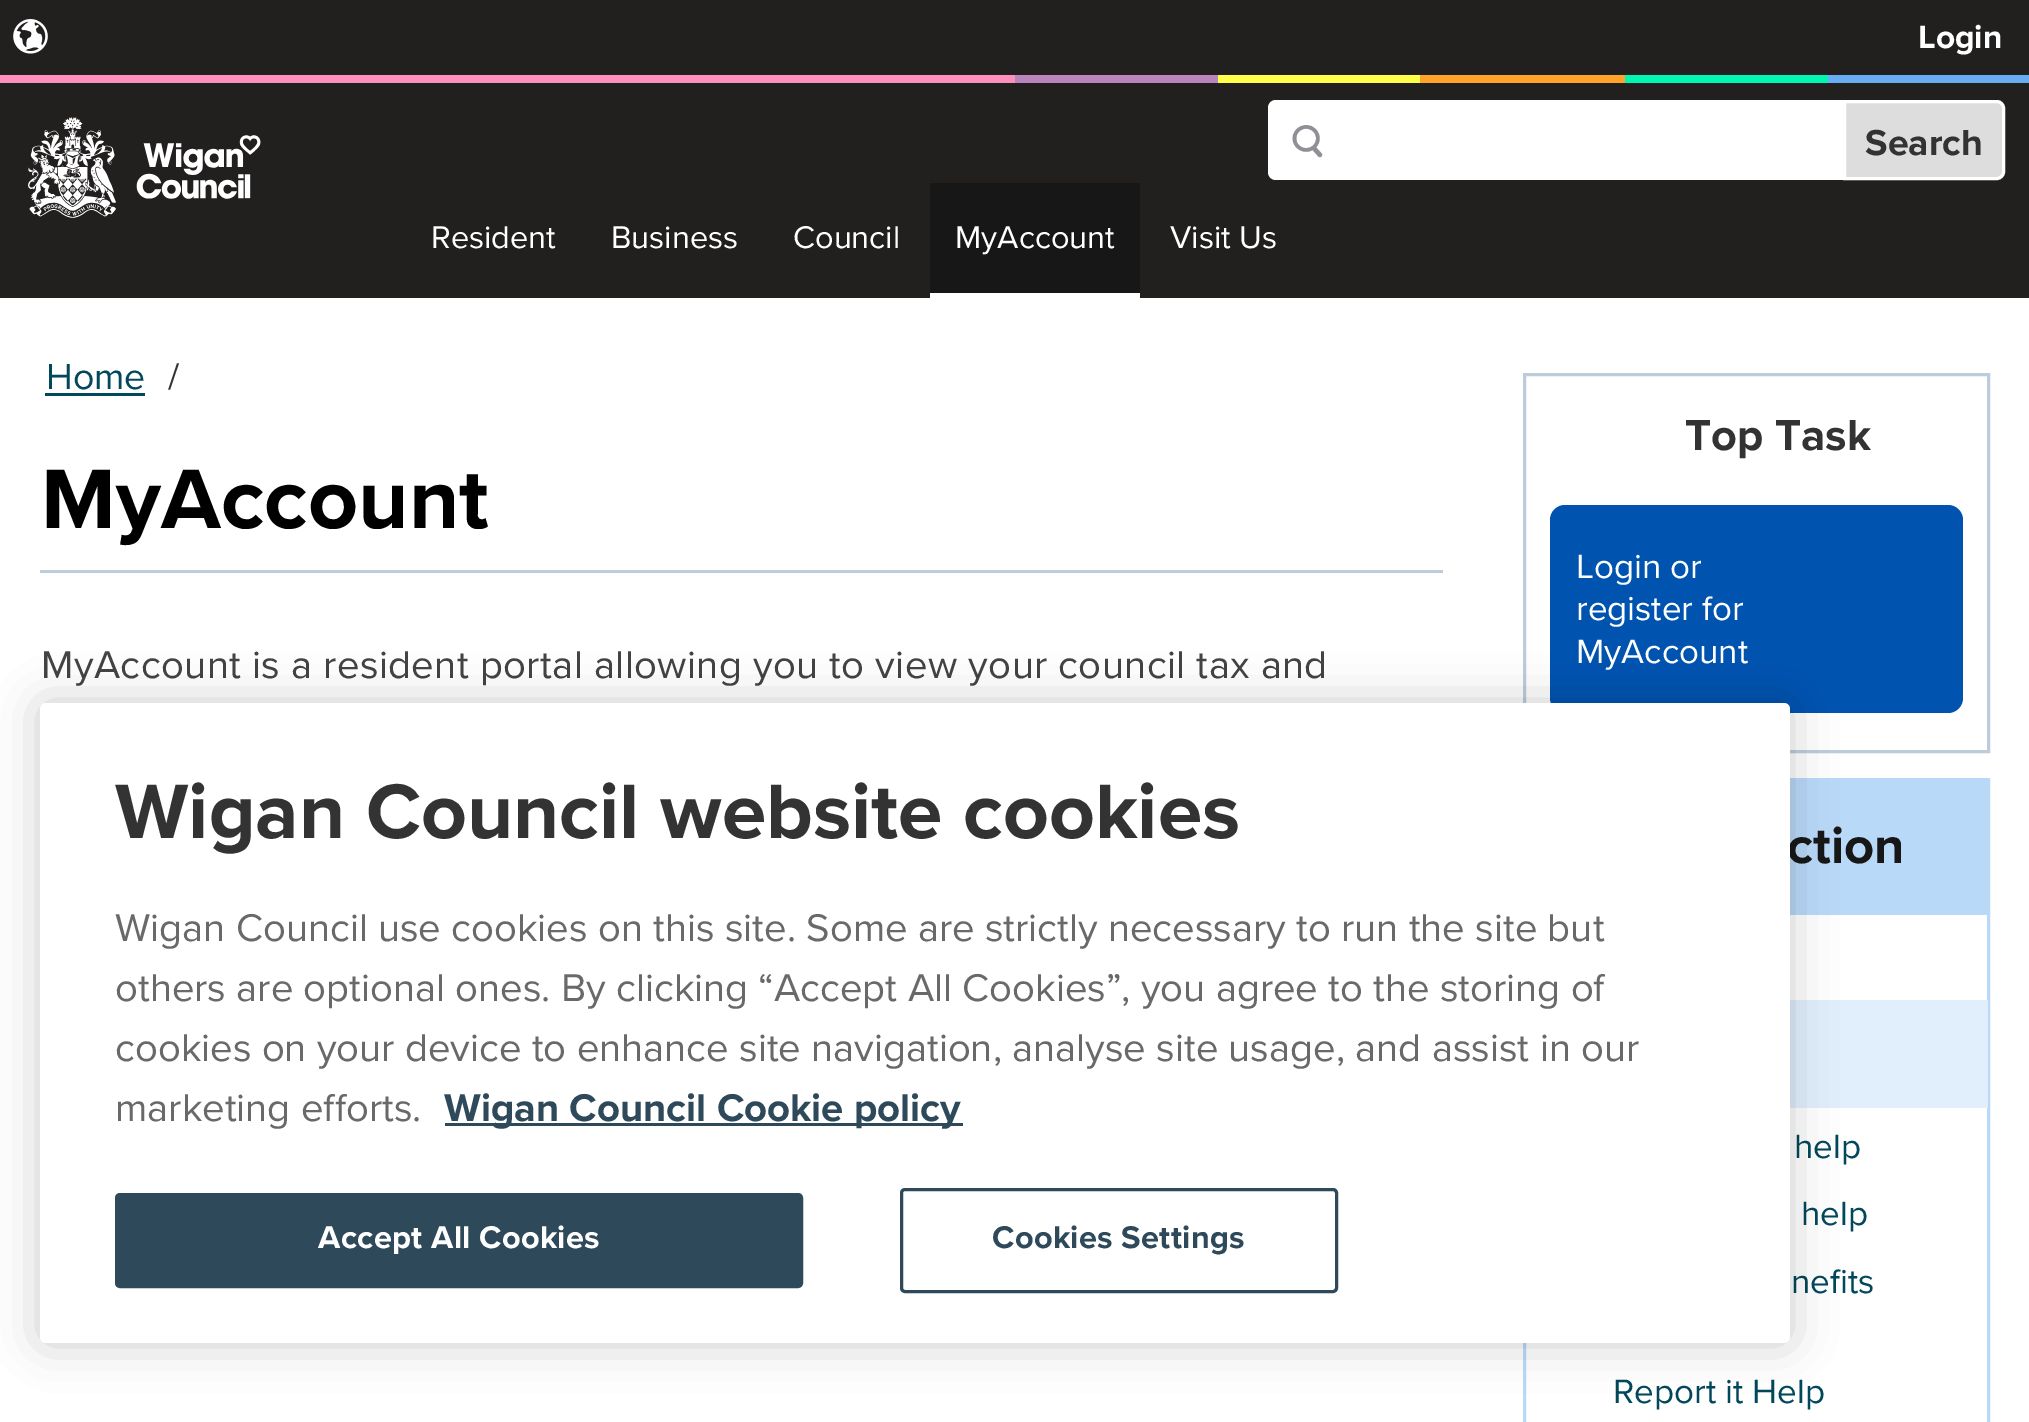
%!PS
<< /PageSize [2029 1422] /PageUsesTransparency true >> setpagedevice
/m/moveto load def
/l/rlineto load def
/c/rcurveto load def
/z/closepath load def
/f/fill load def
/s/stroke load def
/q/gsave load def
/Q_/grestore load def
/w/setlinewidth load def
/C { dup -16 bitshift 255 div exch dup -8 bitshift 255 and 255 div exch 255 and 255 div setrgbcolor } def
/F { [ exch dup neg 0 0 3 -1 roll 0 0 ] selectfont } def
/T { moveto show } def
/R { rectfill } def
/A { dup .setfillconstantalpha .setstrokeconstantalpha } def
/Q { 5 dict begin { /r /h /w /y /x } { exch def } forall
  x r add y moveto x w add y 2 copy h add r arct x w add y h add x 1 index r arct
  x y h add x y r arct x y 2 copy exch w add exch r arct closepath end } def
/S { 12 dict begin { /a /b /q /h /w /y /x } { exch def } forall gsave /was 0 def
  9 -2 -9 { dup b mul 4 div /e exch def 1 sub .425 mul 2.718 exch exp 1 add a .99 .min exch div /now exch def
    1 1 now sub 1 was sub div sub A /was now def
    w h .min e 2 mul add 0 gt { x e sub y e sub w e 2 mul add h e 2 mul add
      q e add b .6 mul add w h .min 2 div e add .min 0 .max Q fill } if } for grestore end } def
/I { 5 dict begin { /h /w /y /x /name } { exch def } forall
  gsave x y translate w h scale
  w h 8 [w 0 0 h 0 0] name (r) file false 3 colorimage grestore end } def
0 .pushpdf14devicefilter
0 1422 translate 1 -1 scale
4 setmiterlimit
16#FFFFFF C
0 0 2029 1422 R
16#221F1F C
0 0 2029 298 R
(1.rgb) 13 19 35 35 I
/ProximaNova-Bold 33.5 F
16#FFFFFF C
(Login) 1918 48 T
16#FF8FBB C
0 75 1015 8 R
16#BA85BC C
1015 75 203 8 R
16#FFFE49 C
1218 75 202 8 R
16#FFA428 C
1420 75 205 8 R
16#00F7B1 C
1625 75 203 8 R
16#69ADF2 C
1828 75 201 8 R
(2.rgb) 28 117 233 101 I
16#FFFFFF C
1276 100 m 567 0 l 0 80 l -567 0 l -4.5 0 -8 -3.5 -8 -8 c 0 -64 l 0 -4.5 3.5 -8 8 -8 c z f
(3.rgb) 1292 125 31 33 I
16#DDDDDD C
1844.5 101.5 m 152.5 0 l 3.5 0 6.5 3 6.5 6.5 c 0 64 l 0 3.5 -3 6.5 -6.5 6.5 c -152.5 0 l z q f Q_
16#FFFFFF C
3 w
s
/ProximaNova-Bold 37.5 F
16#333333 C
(Search) 1865 155 T
/ProximaNova-Regular 32.5 F
16#FFFFFF C
(Resident) 431 248 T
(Business) 611 248 T
(Council) 793 248 T
16#171717 C
930 183 210 110 R
16#FFFFFF C
930 293 210 5 R
(MyAccount) 955 248 T
(Visit Us) 1170 248 T
/ProximaNova-Regular 37.5 F
16#01485B C
(Home) 46 389 T
45 393 100 3 R
16#333333 C
(/) 168 389 T
16#BDCCDB C
40 570 1403 3 R
/ProximaNova-Bold 87.5 F
16#000000 C
(MyAccount) 41 528 T
/ProximaNova-Regular 40 F
16#444444 C
41 678 m .4 0 (MyAccount is a resident portal allowing you to view your council tax and) ashow
16#BDCCDB C
1524.5 374.5 464 377 rectstroke
/ProximaNova-Bold 45 F
16#333333 C
(Top Task) 1685 450 T
16#0054B0 C
1550 505 413 208 15 Q f
/ProximaNova-Regular 35 F
16#FFFFFF C
(Login or) 1576 578 T
(register for) 1576 620 T
(MyAccount) 1576 663 T
16#B9D9F9 C
1524.5 779.5 464 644 rectstroke
1790 781 197 134 R
/ProximaNova-Bold 52.5 F
16#171717 C
(ction) 1787 863 T
16#E1EFFD C
1790 1000 198 108 R
/ProximaNova-Regular 35 F
16#01485B C
(help) 1794 1158 T
(help) 1801 1225 T
(nefits) 1791 1293 T
(Report it Help) 1613 1403 T
16#000000 C
40 703 1750 640 6 22.5 .2 S
16#FFFFFF C
40 703 1750 640 6 Q f
/ProximaNova-Bold 80 F
16#333333 C
(Wigan Council website cookies) 115 838 T
/ProximaNova-Regular 40 F
16#696969 C
(Wigan Council use cookies on this site. Some are strictly necessary to run the site but) 115 941 T
(others are optional ones. By clicking “Accept All Cookies”, you agree to the storing of) 115 1001 T
(cookies on your device to enhance site navigation, analyse site usage, and assist in our) 115 1061 T
(marketing efforts.) 115 1121 T
16#2E4A5A C
445 1123 518 3 R
/ProximaNova-Bold 40 F
(Wigan Council Cookie policy) 444 1121 T
116.5 1194.5 685 92 3.5 Q q f Q_
s
/ProximaNova-Bold 32.5 F
16#FFFFFF C
318 1248 m .3 0 (Accept All Cookies) ashow
16#2E4A5A C
901.5 1189.5 435 102 3.5 Q s
992 1248 m .3 0 (Cookies Settings) ashow
.poppdf14devicefilter showpage
